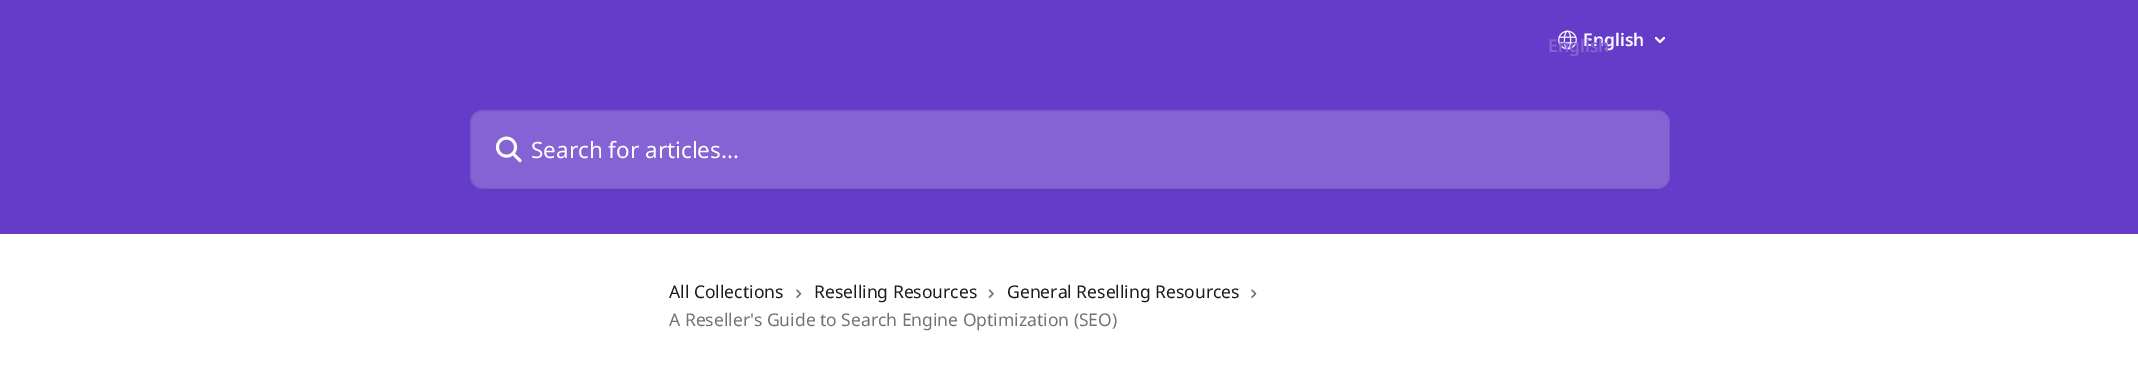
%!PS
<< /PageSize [2138 376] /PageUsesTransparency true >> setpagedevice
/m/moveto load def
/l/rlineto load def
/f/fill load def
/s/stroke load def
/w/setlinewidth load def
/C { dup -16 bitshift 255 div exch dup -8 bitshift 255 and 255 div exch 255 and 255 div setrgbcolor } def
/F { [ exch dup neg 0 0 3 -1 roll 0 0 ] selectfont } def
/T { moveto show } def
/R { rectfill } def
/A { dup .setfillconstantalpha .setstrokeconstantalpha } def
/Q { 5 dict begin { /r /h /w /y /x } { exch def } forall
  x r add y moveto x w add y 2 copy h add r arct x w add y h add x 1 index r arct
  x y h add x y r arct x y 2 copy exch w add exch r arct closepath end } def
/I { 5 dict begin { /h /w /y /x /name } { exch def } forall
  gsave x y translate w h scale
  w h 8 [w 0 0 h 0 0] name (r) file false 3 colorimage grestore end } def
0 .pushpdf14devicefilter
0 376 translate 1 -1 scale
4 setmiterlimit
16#FFFFFF C
0 0 2138 376 R
16#653CC9 C
0 0 2138 234 R
(1.rgb) 1558 30 19 20 I
/NotoSans-SemiBold 17.5 F
16#FFFFFF C
(English) 1583 46 T
16#8463D4 C
(English) 1548 52 T
16#FFFFFF C
1.9 w
1 setlinecap
1 setlinejoin
1656 38 m 4 4 l 4 -4 l s
0.2 A
470 110 1200 79 13 Q f
0.08 A
16#000000 C
1 w
0 setlinecap
0 setlinejoin
470.5 110.5 1199 78 12.5 Q s
1 A
(2.rgb) 495 136 27 27 I
/NotoSans-Regular 22.5 F
16#FFFFFF C
(Search for articles...) 531 158 T
/NotoSans-Regular 17.5 F
16#1A1A1A C
(All Collections) 669 298 T
(3.rgb) 796 289 6 9 I
(Reselling Resources) 814 298 T
(4.rgb) 988 289 6 9 I
(General Reselling Resources) 1007 298 T
(3.rgb) 1251 289 6 9 I
16#737373 C
(A Reseller's Guide to Search Engine Optimization \(SEO\)) 669 326 T
.poppdf14devicefilter showpage
